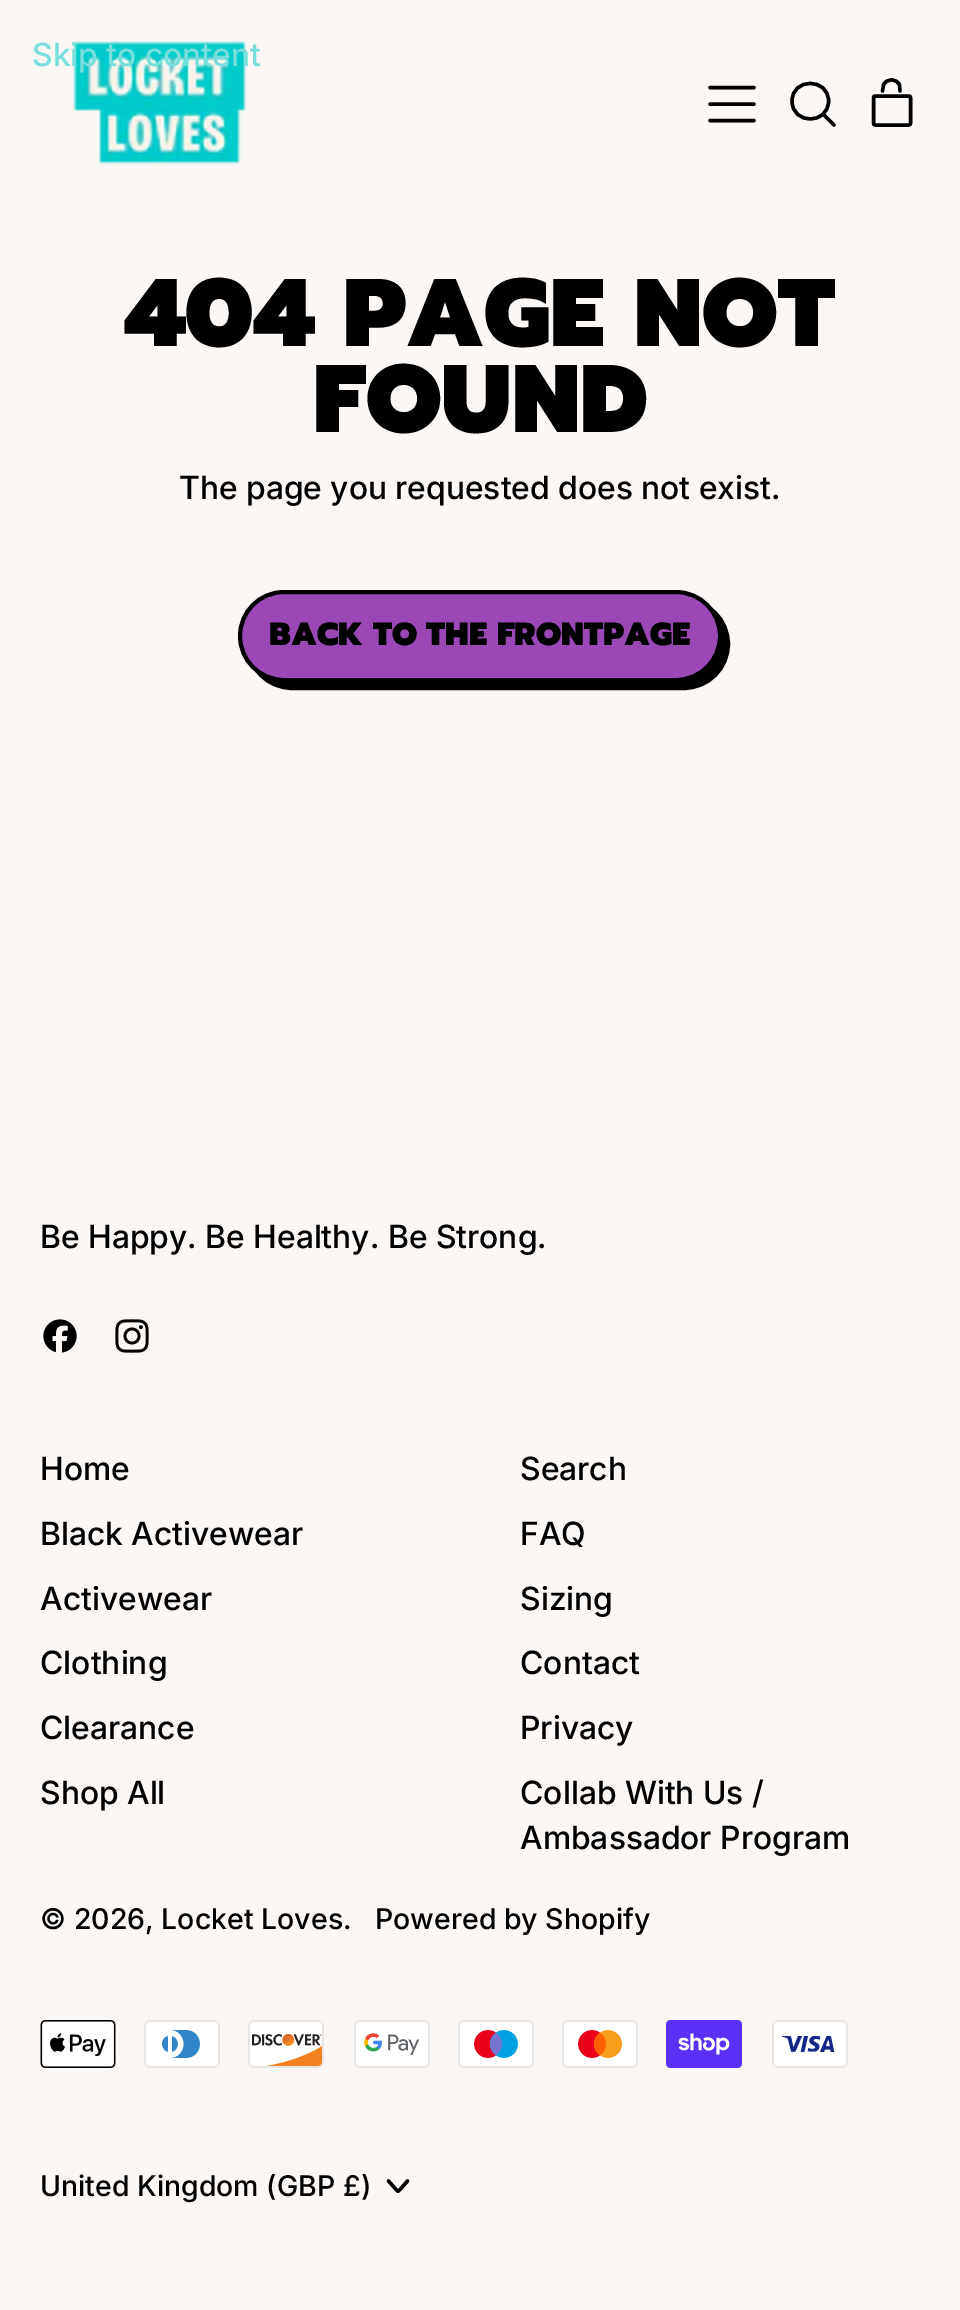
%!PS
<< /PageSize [960 2310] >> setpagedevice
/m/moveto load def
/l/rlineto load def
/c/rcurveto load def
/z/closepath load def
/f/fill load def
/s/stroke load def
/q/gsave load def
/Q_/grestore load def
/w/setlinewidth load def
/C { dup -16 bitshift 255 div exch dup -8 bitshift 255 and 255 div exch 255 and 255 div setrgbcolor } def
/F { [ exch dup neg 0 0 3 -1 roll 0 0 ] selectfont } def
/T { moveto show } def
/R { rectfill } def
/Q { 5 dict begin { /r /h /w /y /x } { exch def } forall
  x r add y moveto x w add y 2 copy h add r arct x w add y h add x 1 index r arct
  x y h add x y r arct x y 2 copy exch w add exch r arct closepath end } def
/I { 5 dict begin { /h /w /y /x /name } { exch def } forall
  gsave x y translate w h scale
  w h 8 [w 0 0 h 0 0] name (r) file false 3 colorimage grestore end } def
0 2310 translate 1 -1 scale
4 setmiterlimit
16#FAF7F5 C
0 0 960 2310 R
(1.rgb) 73 41 174 124 I
/Inter-Medium 32 F
16#78DFDD C
(Skip to content) 32 66 T
16#000000 C
3.4 w
1 setlinecap
1 setlinejoin
754 120.5 m -44 0 l 754 104 m -44 0 l 754 87.5 m -44 0 l s
792 101 m 0 24 36.5 24 36.5 0 c 0 -23.5 -36.5 -23.5 -36.5 0 c z 834 125 m -10.5 -10.5 l s
908.5 96 m -33 0 l -1.5 0 -2 .5 -2 2 c 0 25 l 0 1 .5 2 2 2 c 33 0 l 1.5 0 2 -1 2 -2 c 0 -25 l 0 -1.5 -.5 -2 -2 -2 c z 882.5 91 m 1 -6 l 3 -7 13 -7 16 0 c .5 6 l s
/Prompt-Black 96 F
(404 PAGE NOT) 125 346 T
(FOUND) 313 432 T
/Inter-Medium 32 F
(The page you requested does not exist.) 179 499 T
248 600 480 88 44 Q q f Q_
4 w
0 setlinecap
0 setlinejoin
s
16#9A48B5 C
240 592 480 88 44 Q q f Q_
16#000000 C
s
/Prompt-Black 32 F
(BACK TO THE FRONTPAGE) 269 645 T
/Inter-Medium 32 F
(Be Happy. Be Healthy. Be Strong.) 40 1248 T
(2.rgb) 43 1319 34 34 I
(3.rgb) 115 1319 34 34 I
(Home) 40 1480 T
(Black Activewear) 40 1545 T
(Activewear) 40 1610 T
(Clothing) 40 1674 T
(Clearance) 40 1739 T
(Shop All) 40 1804 T
(Search) 520 1480 T
(FAQ) 520 1545 T
(Sizing) 520 1610 T
(Contact) 520 1674 T
(Privacy) 520 1739 T
(Collab With Us /) 520 1804 T
(Ambassador Program) 520 1849 T
/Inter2-Medium 28.5 F
(© 2026, Locket Loves.) 40 1929 T
(Powered by Shopify) 375 1929 T
(4.rgb) 40 2020 76 48 I
(5.rgb) 144 2020 76 48 I
(6.rgb) 248 2020 76 48 I
(7.rgb) 354 2020 76 48 I
(8.rgb) 458 2020 76 48 I
(9.rgb) 562 2020 76 48 I
(10.rgb) 666 2020 76 48 I
(11.rgb) 772 2020 76 48 I
(United Kingdom \(GBP) 40 2196 T
(£\)) 343 2196 T
3.4 w
1 setlinecap
1 setlinejoin
388.5 2181 m 7.5 8.5 l 2.5 2.5 1.5 2.5 4 0 c 7.5 -8.5 l s
showpage
